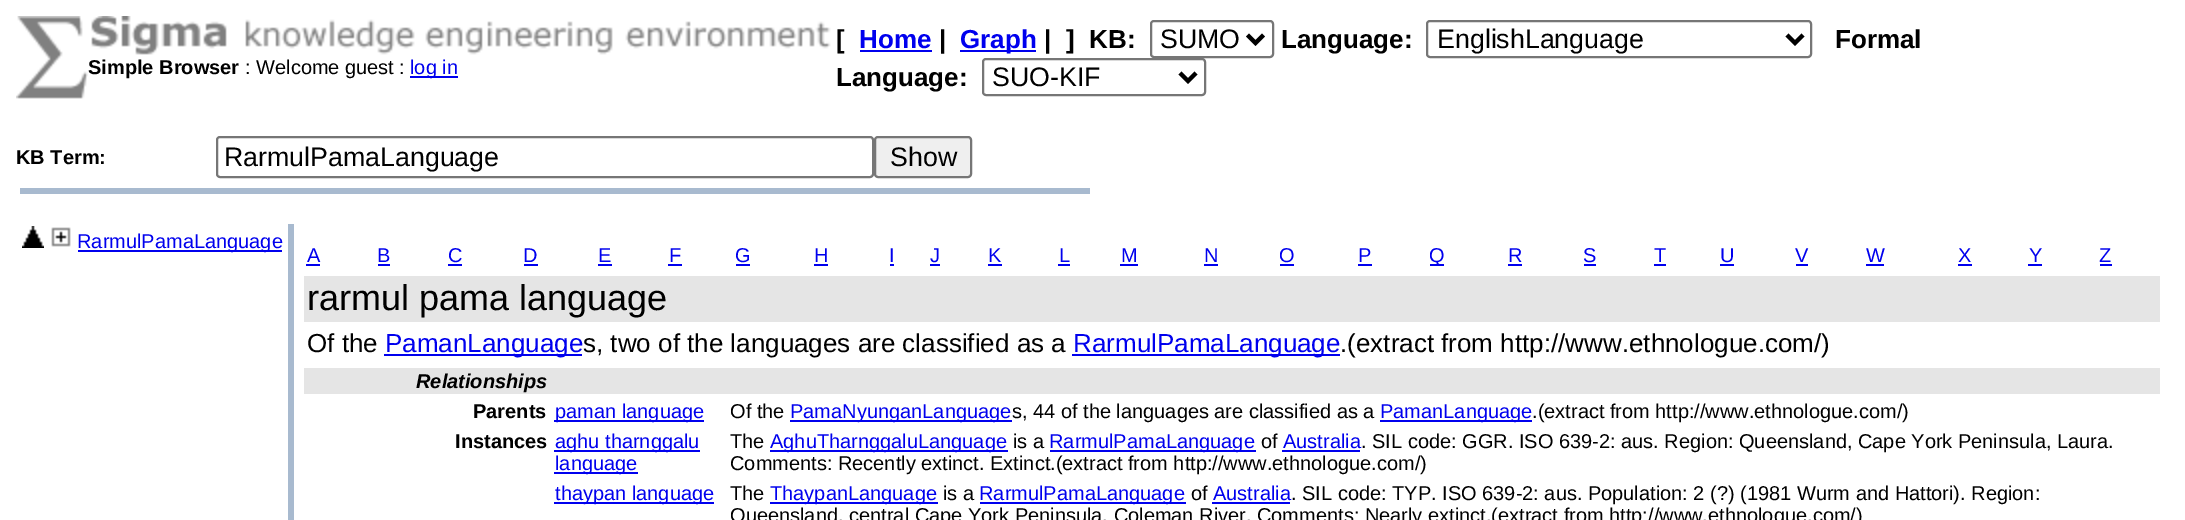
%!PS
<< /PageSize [2185 520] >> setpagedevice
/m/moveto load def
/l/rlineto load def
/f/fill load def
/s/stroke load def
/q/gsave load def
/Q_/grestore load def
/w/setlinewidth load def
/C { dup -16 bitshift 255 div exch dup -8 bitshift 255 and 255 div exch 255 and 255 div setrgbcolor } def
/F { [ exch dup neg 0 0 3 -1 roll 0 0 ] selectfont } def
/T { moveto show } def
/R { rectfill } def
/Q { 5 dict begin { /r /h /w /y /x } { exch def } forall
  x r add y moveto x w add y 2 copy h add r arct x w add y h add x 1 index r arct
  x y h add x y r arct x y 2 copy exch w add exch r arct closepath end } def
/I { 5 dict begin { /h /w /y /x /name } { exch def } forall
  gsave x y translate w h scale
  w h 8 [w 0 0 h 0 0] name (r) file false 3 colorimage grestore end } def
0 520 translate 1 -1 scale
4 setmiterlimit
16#FFFFFF C
0 0 2185 520 R
(1.rgb) 16 16 72 83 I
(2.rgb) 91 16 740 39 I
/LiberationSans-Bold 20 F
16#000000 C
(Simple Browser) 88 74 T
/LiberationSans-Regular 20 F
(: Welcome guest :) 245 74 T
16#0000EE C
410 76 48 2 R
(log in) 410 74 T
/LiberationSans-Bold 26 F
16#000000 C
([) 836 48 T
(Language:) 1281 48 T
16#767676 C
2 w
1427 21 384 36 3 Q s
16#000000 C
4 w
1787 35 m 8 8 l 8 -8 l s
/LiberationSans-Regular 26.75 F
(EnglishLanguage) 1437 48 T
/LiberationSans-Bold 26 F
(Formal) 1835 48 T
(Language:) 836 86 T
16#767676 C
2 w
983 59 222 36 3 Q s
16#000000 C
4 w
1180 73 m 8 8 l 8 -8 l s
/LiberationSans-Regular 26.75 F
(SUO-KIF) 992 86 T
/LiberationSans-Bold 26 F
16#0000EE C
(Home) 859 48 T
860 50 72 2 R
16#000000 C
(|) 939 48 T
16#0000EE C
960 50 76 2 R
(Graph) 960 48 T
16#000000 C
(|) 1044 48 T
(]) 1066 48 T
(KB:) 1089 48 T
16#767676 C
2 w
1151 21 122 36 3 Q s
16#000000 C
4 w
1247.5 35 m 8 8 l 8 -8 l s
/LiberationSans-Regular 26.75 F
(SUMO) 1160 48 T
/LiberationSans-Bold 20 F
(KB Term:) 16 164 T
16#767676 C
2 w
217 137 656 40 3 Q s
/LiberationSans-Regular 26.75 F
16#000000 C
(RarmulPamaLanguage) 224 166 T
16#EFEFEF C
875 137 96 40 3 Q q f Q_
16#767676 C
s
16#000000 C
(Show) 890 166 T
16#A8BACF C
20 188 1070 6 R
(3.rgb) 22 226 22 22 I
(4.rgb) 51 227 20 20 I
16#0000EE C
78 250 204 2 R
/LiberationSans-Regular 20 F
(RarmulPamaLanguage) 77 248 T
16#A8BACF C
288 224 6 296 R
16#0000EE C
(A) 307 262 T
306 264 14 2 R
(B) 377 262 T
378 264 12 2 R
(C) 448 262 T
448 264 14 2 R
(D) 523 262 T
524 264 14 2 R
(E) 598 262 T
598 264 14 2 R
(F) 669 262 T
668 264 14 2 R
(G) 735 262 T
736 264 14 2 R
(H) 814 262 T
814 264 14 2 R
(I) 889 262 T
890 264 4 2 R
(J) 930 262 T
930 264 10 2 R
(K) 988 262 T
988 264 14 2 R
(L) 1059 262 T
1058 264 12 2 R
(M) 1121 262 T
1120 264 18 2 R
(N) 1204 262 T
1204 264 14 2 R
(O) 1279 262 T
1280 264 14 2 R
(P) 1358 262 T
1358 264 14 2 R
1430 264 14 2 R
(Q) 1429 262 T
(R) 1508 262 T
1508 264 14 2 R
(S) 1583 262 T
1584 264 12 2 R
(T) 1654 262 T
1654 264 12 2 R
(U) 1720 262 T
1720 264 14 2 R
(V) 1795 262 T
1796 264 12 2 R
(W) 1866 262 T
1866 264 18 2 R
(X) 1958 262 T
1958 264 14 2 R
(Y) 2029 262 T
2028 264 14 2 R
(Z) 2099 262 T
2100 264 12 2 R
16#E5E5E5 C
304 276 1856 46 R
/LiberationSans-Regular 36 F
16#000000 C
(rarmul pama language) 307 310 T
/LiberationSans-Regular 26 F
(Of the) 307 352 T
16#0000EE C
384 354 198 2 R
(PamanLanguage) 385 352 T
16#000000 C
(s, two of the languages are classified as a) 583 352 T
16#0000EE C
1072 354 268 2 R
(RarmulPamaLanguage) 1073 352 T
16#000000 C
(.\(extract from http://www.ethnologue.com/\)) 1340 352 T
16#E5E5E5 C
304 368 1856 26 R
/LiberationSans-BoldItalic 20 F
16#000000 C
(Relationships) 416 388 T
/LiberationSans-Bold 20 F
(Parents) 473 418 T
16#0000EE C
554 420 150 2 R
/LiberationSans-Regular 20 F
(paman language) 555 418 T
16#000000 C
(Of the) 730 418 T
16#0000EE C
790 420 222 2 R
(PamaNyunganLanguage) 790 418 T
16#000000 C
(s, 44 of the languages are classified as a) 1012 418 T
16#0000EE C
1380 420 152 2 R
(PamanLanguage) 1380 418 T
16#000000 C
(.\(extract from http://www.ethnologue.com/\)) 1532 418 T
/LiberationSans-Bold 20 F
(Instances) 455 448 T
16#0000EE C
554 450 146 2 R
/LiberationSans-Regular 20 F
(aghu tharnggalu) 555 448 T
554 472 84 2 R
(language) 555 470 T
16#000000 C
(The) 730 448 T
16#0000EE C
770 450 238 2 R
(AghuTharnggaluLanguage) 770 448 T
16#000000 C
(is a) 1013 448 T
16#0000EE C
1050 450 206 2 R
(RarmulPamaLanguage) 1049 448 T
16#000000 C
(of) 1261 448 T
16#0000EE C
(Australia) 1283 448 T
1282 450 78 2 R
16#000000 C
(. SIL code: GGR. ISO 639-2: aus. Region: Queensland, Cape York Peninsula, Laura.) 1361 448 T
(Comments: Recently extinct. Extinct.\(extract from http://www.ethnologue.com/\)) 730 470 T
16#0000EE C
554 502 160 2 R
(thaypan language) 555 500 T
16#000000 C
(The) 730 500 T
16#0000EE C
770 502 168 2 R
(ThaypanLanguage) 770 500 T
16#000000 C
(is a) 943 500 T
16#0000EE C
980 502 206 2 R
(RarmulPamaLanguage) 979 500 T
16#000000 C
(of) 1191 500 T
16#0000EE C
(Australia) 1213 500 T
1212 502 78 2 R
16#000000 C
(. SIL code: TYP. ISO 639-2: aus. Population: 2 \(?\) \(1981 Wurm and Hattori\). Region:) 1291 500 T
(Queensland, central Cape York Peninsula, Coleman River. Comments: Nearly extinct.\(extract from http://www.ethnologue.com/\)) 730 522 T
showpage
